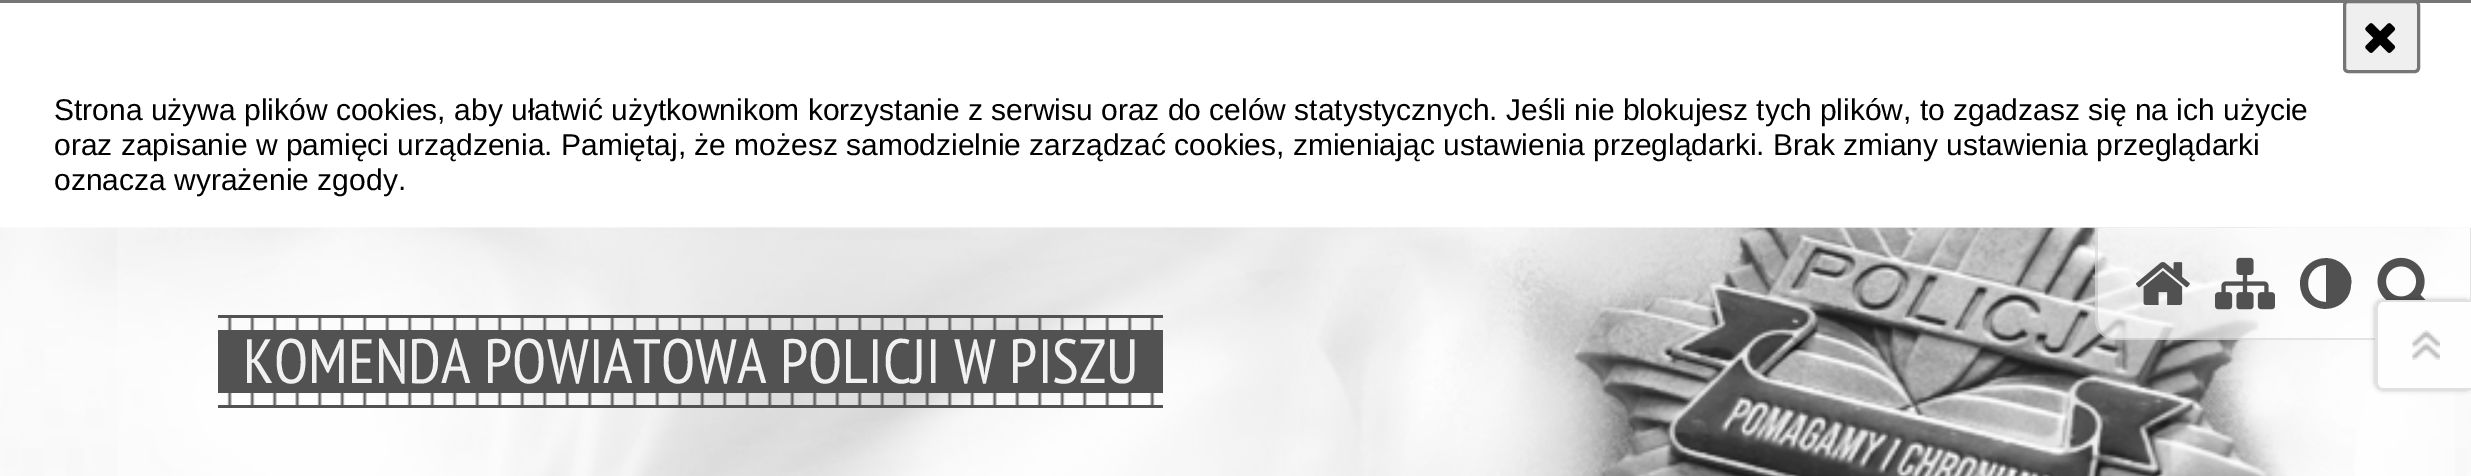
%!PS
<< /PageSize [2471 476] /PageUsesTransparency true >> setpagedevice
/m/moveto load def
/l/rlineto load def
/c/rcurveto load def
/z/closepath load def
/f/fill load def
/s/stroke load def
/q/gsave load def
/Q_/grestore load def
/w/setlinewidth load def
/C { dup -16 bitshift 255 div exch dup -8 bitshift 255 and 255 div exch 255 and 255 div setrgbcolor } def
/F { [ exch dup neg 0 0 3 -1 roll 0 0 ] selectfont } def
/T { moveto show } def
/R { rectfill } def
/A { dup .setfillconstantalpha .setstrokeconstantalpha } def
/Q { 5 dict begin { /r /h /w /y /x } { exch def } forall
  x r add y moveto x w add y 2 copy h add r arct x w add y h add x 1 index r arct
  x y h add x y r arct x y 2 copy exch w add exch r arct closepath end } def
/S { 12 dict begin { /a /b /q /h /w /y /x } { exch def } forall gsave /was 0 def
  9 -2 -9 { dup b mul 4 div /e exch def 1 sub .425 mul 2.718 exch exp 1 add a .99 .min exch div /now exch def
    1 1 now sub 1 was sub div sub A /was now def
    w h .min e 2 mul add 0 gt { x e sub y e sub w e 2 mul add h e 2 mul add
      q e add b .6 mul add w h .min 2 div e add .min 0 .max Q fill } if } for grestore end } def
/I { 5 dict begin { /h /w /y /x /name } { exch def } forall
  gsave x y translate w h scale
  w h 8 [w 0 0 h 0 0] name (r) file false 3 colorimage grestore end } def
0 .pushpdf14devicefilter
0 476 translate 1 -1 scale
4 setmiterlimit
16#FFFFFF C
0 0 2471 476 R
16#767676 C
0 0 2471 3 R
16#EFEFEF C
2344.5 1.5 74 70 3.5 Q q f Q_
16#767676 C
3 w
s
(1.rgb) 2365 23 31 30 I
/LiberationSans-Regular 30 F
16#000000 C
(Strona używa plików cookies, aby ułatwić użytkownikom korzystanie z serwisu oraz do celów statystycznych. Jeśli nie blokujesz tych plików, to zgadzasz się na ich użycie) 54 120 T
(oraz zapisanie w pamięci urządzenia. Pamiętaj, że możesz samodzielnie zarządzać cookies, zmieniając ustawienia przeglądarki. Brak zmiany ustawienia przeglądarki) 54 155 T
(oznacza wyrażenie zgody.) 54 190 T
(2.rgb) 0 227 2471 249 I
(3.rgb) 117 227 2338 249 I
0.7 A
16#FFFFFF C
2095 228 m 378 0 l 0 92 l 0 11 -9 20 -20 20 c -338 0 l -11 0 -20 -9 -20 -20 c z f
0.1 A
16#000000 C
2095 228 m 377 0 l 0 92 l 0 11 -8 20 -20 20 c -337 0 l -11 0 -20 -9 -20 -20 c z 2098 228 m 372 0 l 0 92 l 0 10 -8 18 -18 18 c -337 0 l -10 0 -17 -8 -17 -18 c z eofill
1 A
(4.rgb) 2135 262 55 43 I
(5.rgb) 2215 257 60 53 I
16#515151 C
2326 302 m 0 -37 l -24 0 -24 37 0 37 c z 2348 271 m 3 4 4 9 3 14 c -1 25 -35 33 -48 11 c -2 -4 -3 -9 -3 -14 c 2 -25 35 -33 48 -11 c z f
(6.rgb) 2377 257 49 43 I
(7.rgb) 227 318 928 87 I
16#525252 C
218 315 945 3 R
218 405 945 3 R
218 330 945 63 R
/PTSansNarrow-Regular 62.5 F
16#F1F1F1 C
(KOMENDA POWIATOWA POLICJI W PISZU) 243 383 T
16#000000 C
2375 300 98 90 8 2.5 .25 S
16#FEFEFE C
2383 300 m 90 0 l 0 90 l -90 0 l -4.5 0 -8 -3.5 -8 -8 c 0 -74 l 0 -4.5 3.5 -8 8 -8 c z f
16#E1E1E1 C
2382 300 m 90 0 l 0 90 l -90 0 l -4 0 -7 -3 -7 -8 c 0 -74 l 0 -5 3 -8 7 -8 c z 2382 302 m 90 0 l 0 86 l -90 0 l -2 0 -4 -3 -4 -6 c 0 -74 l 0 -3 2 -6 4 -6 c z eofill
(8.rgb) 2412 330 28 30 I
.poppdf14devicefilter showpage
